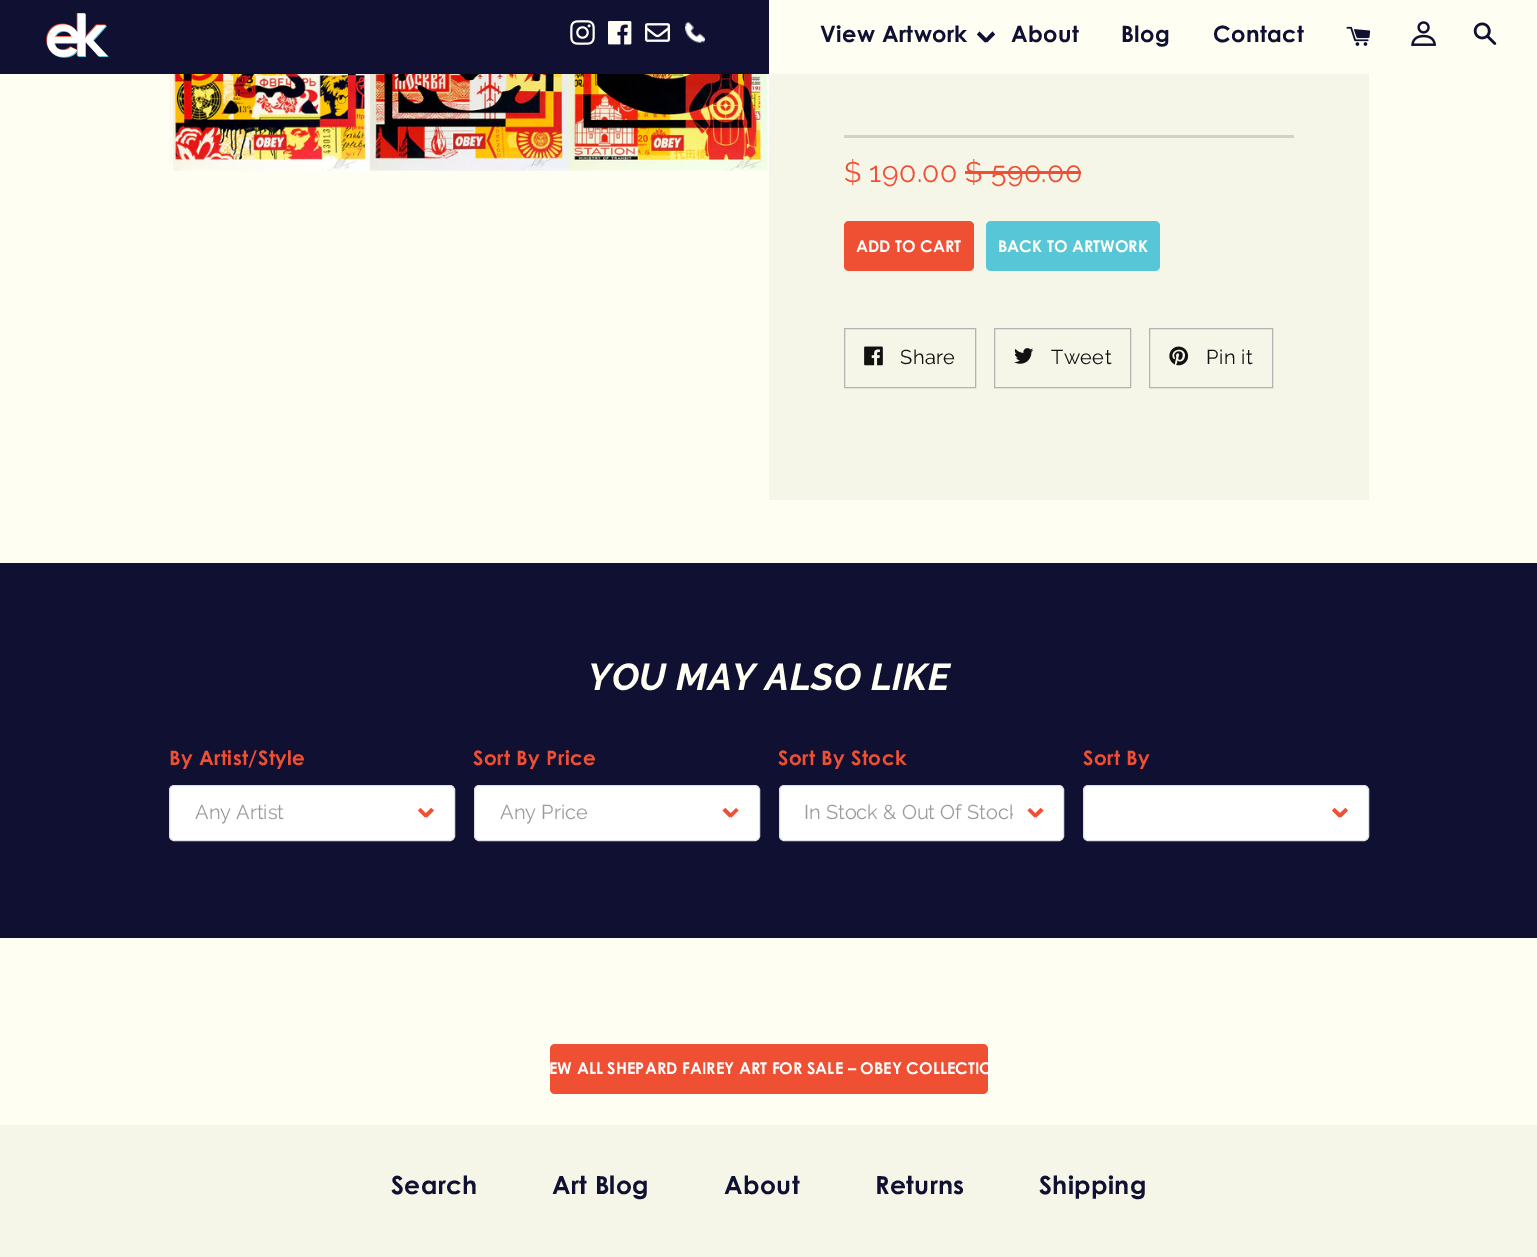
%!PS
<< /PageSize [1537 1257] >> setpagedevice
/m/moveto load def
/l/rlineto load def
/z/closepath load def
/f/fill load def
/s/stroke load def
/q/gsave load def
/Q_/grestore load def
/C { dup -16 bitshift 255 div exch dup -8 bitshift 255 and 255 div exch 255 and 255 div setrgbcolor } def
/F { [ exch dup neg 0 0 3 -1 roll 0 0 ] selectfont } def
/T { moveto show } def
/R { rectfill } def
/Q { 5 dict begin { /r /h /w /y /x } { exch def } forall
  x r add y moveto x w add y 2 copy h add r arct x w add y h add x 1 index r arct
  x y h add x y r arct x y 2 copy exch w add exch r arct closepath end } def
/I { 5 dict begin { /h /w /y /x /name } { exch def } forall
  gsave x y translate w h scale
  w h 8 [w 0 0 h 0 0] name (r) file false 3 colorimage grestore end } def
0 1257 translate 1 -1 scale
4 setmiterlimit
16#FEFEF3 C
0 0 1537 1257 R
16#0F1032 C
0 0 769 74 R
(1.rgb) 46 13 63 45 I
(2.rgb) 570 20 25 25 I
(3.rgb) 608 21 24 24 I
(4.rgb) 645 23 25 19 I
(5.rgb) 685 22 20 21 I
/CenturyGothic-Bold 22.5 F
820 42 m .4 0 (View Artwork) ashow
984.5 40 m 8 -8.5 l 2.5 3 l -8 8 l z f
977 34.5 m 2.5 -3 l 8.5 8.5 l -3 2.5 l z f
1011 42 m .4 0 (About) ashow
1121 42 m .4 0 (Blog) ashow
1213 42 m .4 0 (Contact) ashow
(6.rgb) 1346 26 25 20 I
(7.rgb) 1411 21 25 25 I
(8.rgb) 1473 22 24 23 I
(9.rgb) 169 74 600 97 I
16#F5F5E8 C
769 74 600 426 R
16#D3D3C3 C
844 135 450 3 R
/Raleway-Regular 28.25 F
16#EF4F33 C
844 182 m .4 0 ($ 190.00 $ 590.00) ashow
965 171 116 3 R
844 221 130 50 5 Q f
/CenturyGothic-Bold 16.25 F
16#FFFFFF C
(ADD TO CART) 856 252 T
16#57C7D8 C
986 221 174 50 5 Q f
16#FEFEF3 C
(BACK TO ARTWORK) 998 252 T
16#B3B3B3 C
844.5 328.5 131 59 rectstroke
(10.rgb) 864 346 19 20 I
/Raleway-Regular 20 F
16#111111 C
900 364 m .4 0 (Share) ashow
16#B3B3B3 C
994.5 328.5 136 59 rectstroke
(11.rgb) 1014 348 20 16 I
16#111111 C
1051 364 m .4 0 (Tweet) ashow
16#B3B3B3 C
1149.5 328.5 123 59 rectstroke
(12.rgb) 1169 346 20 20 I
16#111111 C
1206 364 m .4 0 (Pin it) ashow
16#0F1032 C
0 563 1537 375 R
/Raleway-BoldItalic 37.5 F
16#FEFEF3 C
588 690 m .4 0 (YOU MAY ALSO LIKE) ashow
/CenturyGothic-Bold 20 F
16#EF4F33 C
169 765 m .4 0 (By Artist/Style) ashow
16#FFFFFF C
169.5 785.5 285 55 4.5 Q q f Q_
16#E0E1E2 C
s
/Raleway-Regular 20 F
16#9B9B9B C
(Any Artist) 195 819 T
16#EF4F33 C
424 815 m 7 -7 l 3 2.5 l -7 7 l z f
418 810.5 m 2.5 -2.5 l 7 7 l -2.5 2.5 l z f
/CenturyGothic-Bold 20 F
473 765 m .4 0 (Sort By Price) ashow
16#FFFFFF C
474.5 785.5 285 55 4.5 Q q f Q_
16#E0E1E2 C
s
/Raleway-Regular 20 F
16#9B9B9B C
(Any Price) 500 819 T
16#EF4F33 C
729 815 m 7 -7 l 2.5 2.5 l -7 7 l z f
722.5 810.5 m 3 -2.5 l 7 7 l -3 2.5 l z f
/CenturyGothic-Bold 20 F
778 765 m .4 0 (Sort By Stock) ashow
16#FFFFFF C
779.5 785.5 284 55 4.5 Q q f Q_
16#E0E1E2 C
s
q
805 799 208 30 rectclip
/Raleway-Regular 20 F
16#9B9B9B C
(In Stock & Out Of Stock) 804 819 T
Q_
16#EF4F33 C
1033.5 815 m 7 -7 l 3 2.5 l -7.5 7 l z f
1027.5 810.5 m 2.5 -2.5 l 7 7 l -2.5 2.5 l z f
1083 765 m .4 0 (Sort By) ashow
16#FFFFFF C
1083.5 785.5 285 55 4.5 Q q f Q_
16#E0E1E2 C
s
16#EF4F33 C
1338 815 m 7.5 -7 l 2.5 2.5 l -7 7 l z f
1332 810.5 m 2.5 -2.5 l 7.5 7 l -3 2.5 l z f
550 1044 438 50 5 Q f
/CenturyGothic-Bold 16.25 F
16#FFFFFF C
(EW ALL SHEPARD FAIREY ART FOR SALE – OBEY COLLECTIO) 549 1074 T
16#F5F5E8 C
0 1125 1537 132 R
/CenturyGothic-Bold 25 F
16#0F1032 C
391 1194 m .4 0 (Search) ashow
552 1194 m .4 0 (Art Blog) ashow
724 1194 m .4 0 (About) ashow
875 1194 m .4 0 (Returns) ashow
1039 1194 m .4 0 (Shipping) ashow
showpage
